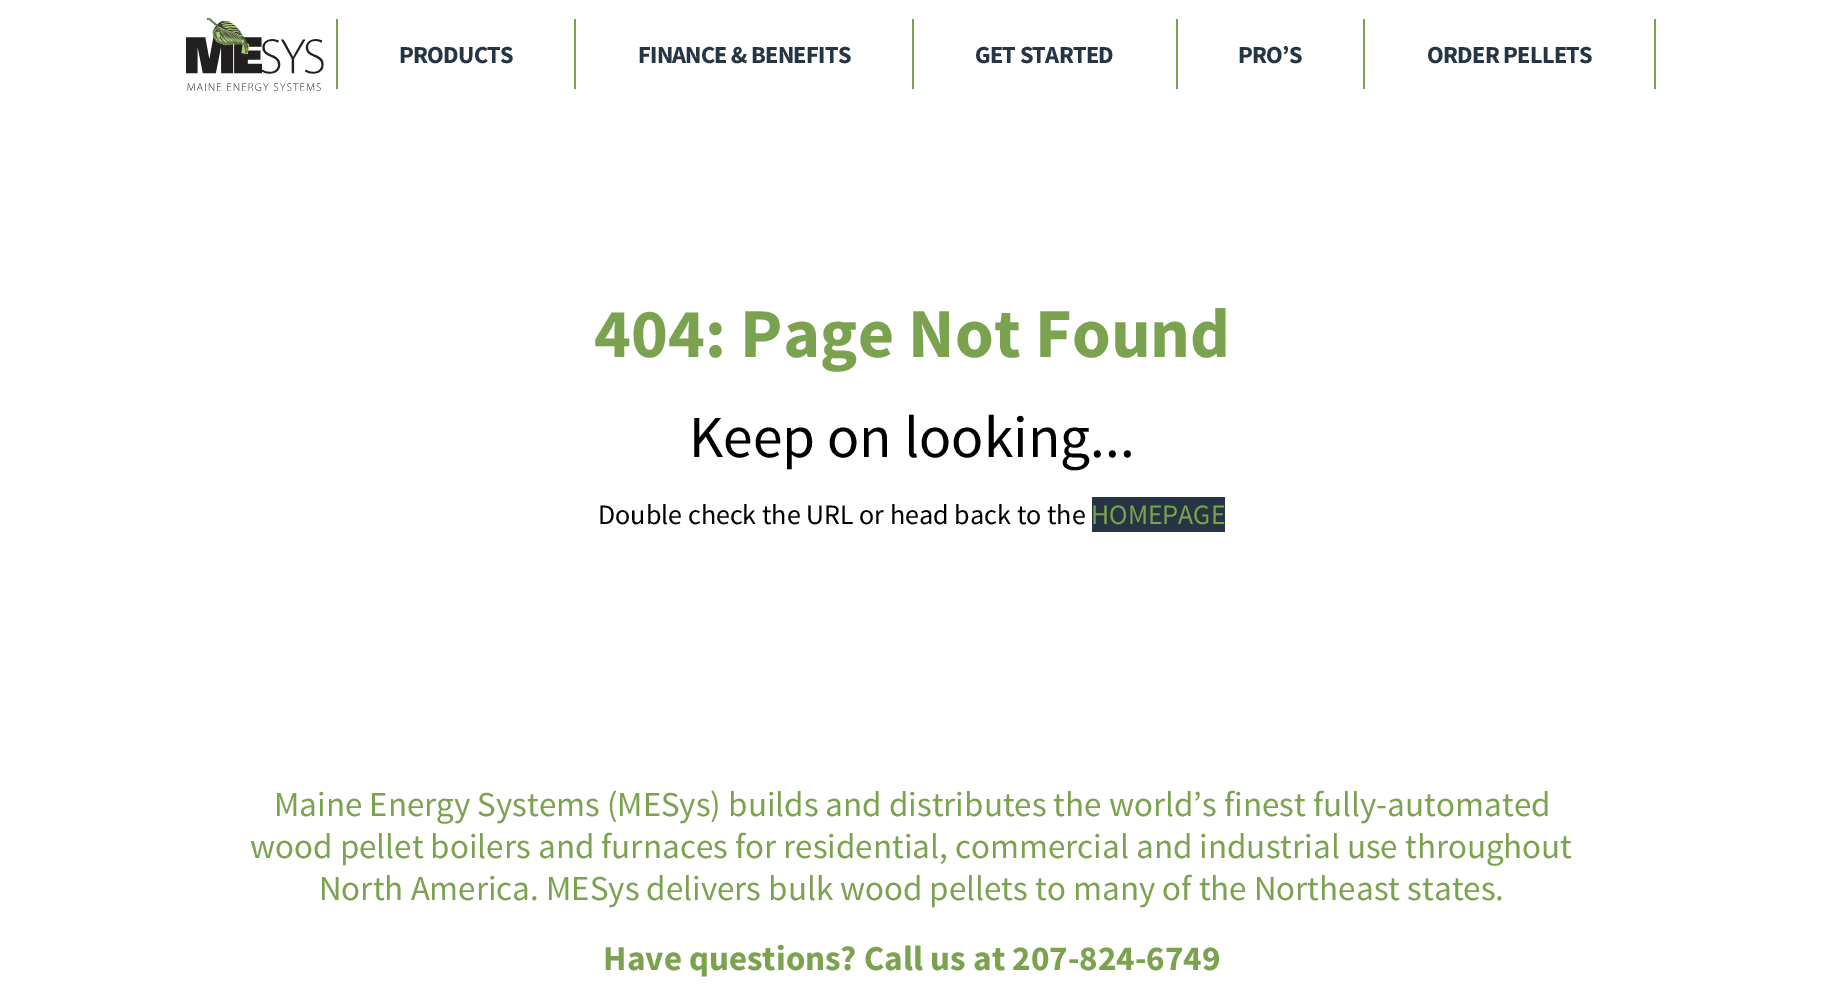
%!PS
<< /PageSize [1823 1008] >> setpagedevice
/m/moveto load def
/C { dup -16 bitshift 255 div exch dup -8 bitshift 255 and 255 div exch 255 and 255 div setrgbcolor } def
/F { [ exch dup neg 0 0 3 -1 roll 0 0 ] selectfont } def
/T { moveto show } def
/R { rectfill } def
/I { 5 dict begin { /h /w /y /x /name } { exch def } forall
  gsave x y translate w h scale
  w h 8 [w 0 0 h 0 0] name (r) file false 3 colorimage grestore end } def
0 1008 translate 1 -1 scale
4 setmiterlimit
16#FFFFFF C
0 0 1823 1008 R
(1.rgb) 186 18 138 73 I
16#7BA24F C
336 19 2 70 R
/SourceSansPro-Bold 24.5 F
16#263543 C
399 63 m -.75 0 (PRODUCTS) ashow
16#7BA24F C
574 19 2 70 R
16#263543 C
638 63 m -.75 0 (FINANCE & BENEFITS) ashow
16#7BA24F C
912 19 2 70 R
16#263543 C
975 63 m -.75 0 (GET STARTED) ashow
16#7BA24F C
1176 19 2 70 R
16#263543 C
1238 63 m -.75 0 (PRO’S) ashow
16#7BA24F C
1654 19 2 70 R
1363 19 2 70 R
16#263543 C
1427 63 m -.75 0 (ORDER PELLETS) ashow
/SourceSansPro-Bold 70 F
16#7BA24F C
(404: Page Not Found) 594 357 T
/SourceSansPro-Regular 59.5 F
16#000000 C
(Keep on looking...) 689 457 T
/SourceSansPro-Regular 28 F
(Double check the URL or head back to the) 598 524 T
16#263543 C
1092 497 133 35 R
16#7BA24F C
(HOMEPAGE) 1091 524 T
/SourceSansPro-Regular 35 F
(Maine Energy Systems \(MESys\) builds and distributes the world’s finest fully-automated) 274 816 T
(wood pellet boilers and furnaces for residential, commercial and industrial use throughout) 250 858 T
(North America. MESys delivers bulk wood pellets to many of the Northeast states.) 319 900 T
/SourceSansPro-Bold 35 F
(Have questions? Call us at 207-824-6749) 603 970 T
showpage
